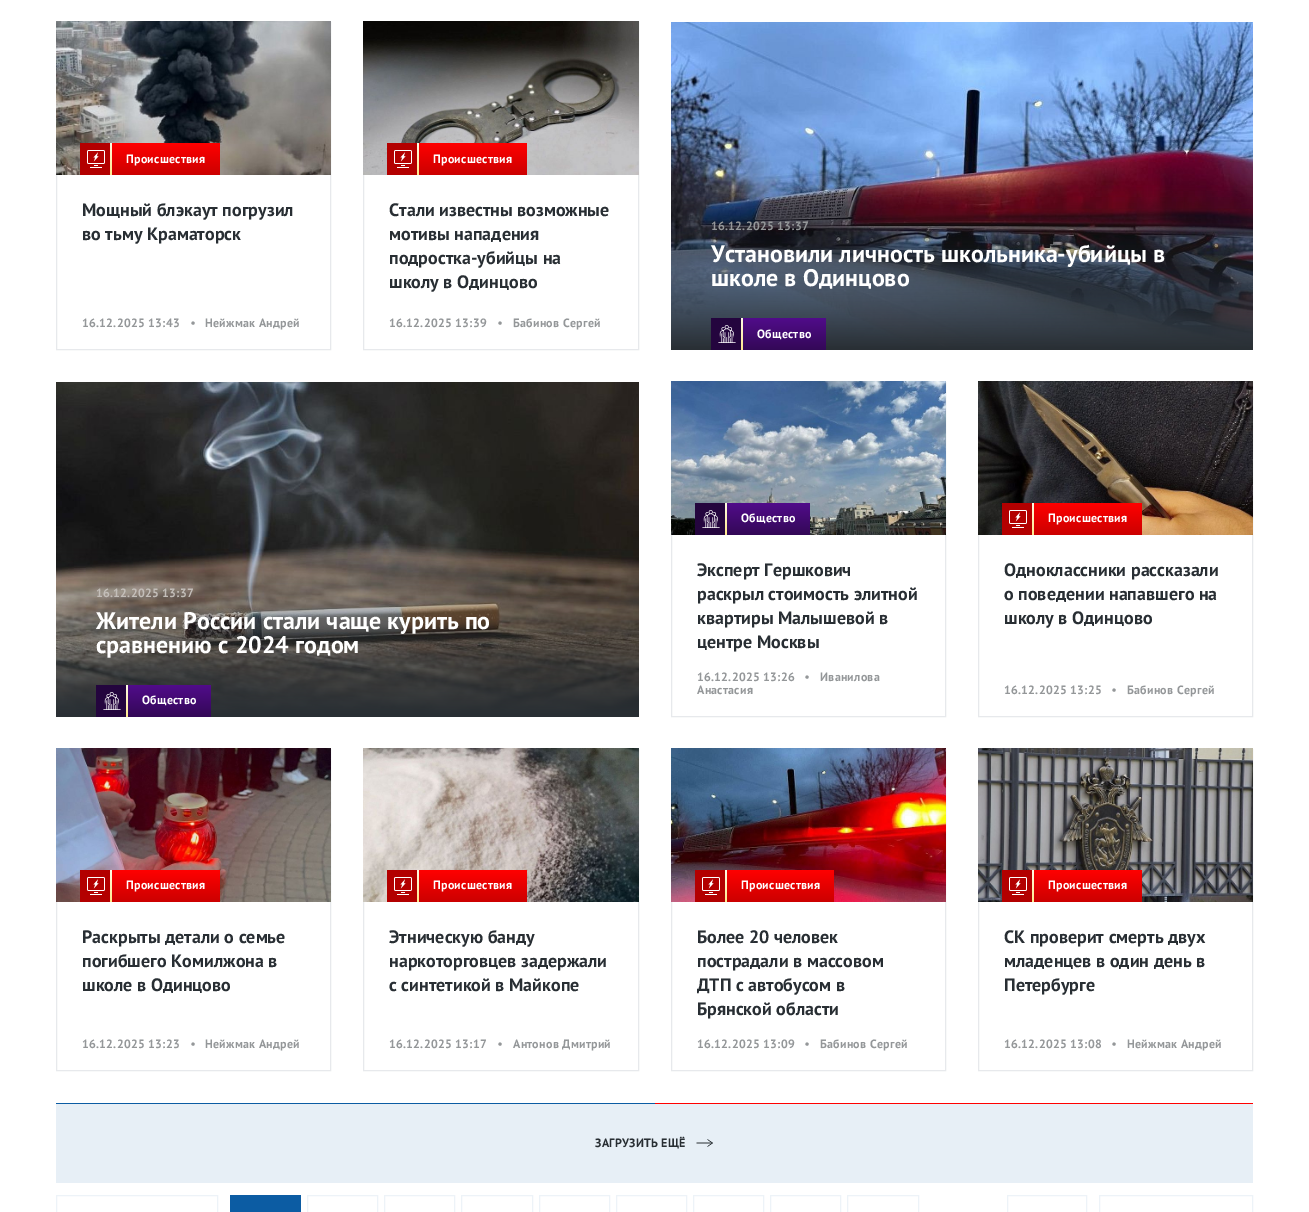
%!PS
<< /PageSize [1309 1212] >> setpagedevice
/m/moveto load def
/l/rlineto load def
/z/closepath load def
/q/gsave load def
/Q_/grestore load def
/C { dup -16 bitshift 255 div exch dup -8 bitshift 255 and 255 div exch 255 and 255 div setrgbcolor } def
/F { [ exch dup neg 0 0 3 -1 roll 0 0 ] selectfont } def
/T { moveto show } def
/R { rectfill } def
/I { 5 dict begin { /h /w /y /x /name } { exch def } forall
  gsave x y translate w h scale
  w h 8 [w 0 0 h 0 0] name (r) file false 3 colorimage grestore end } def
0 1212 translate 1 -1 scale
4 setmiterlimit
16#FFFFFF C
0 0 1309 1212 R
16#E7E9EC C
56.5 22.5 274 327 rectstroke
(1.rgb) 56 21 275 154 I
16#B30000 C
80 143 30 32 R
(2.rgb) 87 150 18 18 I
q 112 143 m 108 0 l 0 32 l -108 0 l z clip newpath
<< /ShadingType 2 /ColorSpace /DeviceRGB /Coords [166 143 166 175] /Extend [true true] /Function << /FunctionType 2 /Domain [0 1] /C0 [1 0 0] /C1 [.8 0 0] /N 1 >> >> shfill Q_
q 110 143 m 2 0 l 0 32 l -2 0 l z clip newpath
<< /ShadingType 2 /ColorSpace /DeviceRGB /Coords [111 143 111 175] /Extend [true true] /Function << /FunctionType 2 /Domain [0 1] /C0 [1 .988 .902] /C1 [.996 .91 .549] /N 1 >> >> shfill Q_
/PTSans-Bold 12 F
16#FFFFFF C
126 163 m .25 0 (Происшествия) ashow
/PTSans-Bold 18 F
16#282E33 C
(Мощный блэкаут погрузил) 82 216 T
(во тьму Краматорск) 82 240 T
/PTSans-Bold 12 F
16#949799 C
82 327 m .25 0 (16.12.2025 13:43) ashow
/LiberationSans-Bold 12 F
191 327 m .25 0 (•) ashow
/PTSans-Bold 12 F
205 327 m .25 0 (Нейжмак Андрей) ashow
16#E7E9EC C
363.5 22.5 275 327 rectstroke
(3.rgb) 363 21 276 154 I
16#B30000 C
387 143 30 32 R
(2.rgb) 394 150 18 18 I
q 419 143 m 108 0 l 0 32 l -108 0 l z clip newpath
<< /ShadingType 2 /ColorSpace /DeviceRGB /Coords [473 143 473 175] /Extend [true true] /Function << /FunctionType 2 /Domain [0 1] /C0 [1 0 0] /C1 [.8 0 0] /N 1 >> >> shfill Q_
q 417 143 m 2 0 l 0 32 l -2 0 l z clip newpath
<< /ShadingType 2 /ColorSpace /DeviceRGB /Coords [418 143 418 175] /Extend [true true] /Function << /FunctionType 2 /Domain [0 1] /C0 [1 .988 .902] /C1 [.996 .91 .549] /N 1 >> >> shfill Q_
16#FFFFFF C
433 163 m .25 0 (Происшествия) ashow
/PTSans-Bold 18 F
16#282E33 C
(Стали известны возможные) 389 216 T
(мотивы нападения) 389 240 T
(подростка-убийцы на) 389 264 T
(школу в Одинцово) 389 288 T
/PTSans-Bold 12 F
16#949799 C
389 327 m .25 0 (16.12.2025 13:39) ashow
/LiberationSans-Bold 12 F
498 327 m .25 0 (•) ashow
/PTSans-Bold 12 F
513 327 m .25 0 (Бабинов Сергей) ashow
(4.rgb) 671 22 582 328 I
711 230 m .25 0 (16.12.2025 13:37) ashow
/PTSans-Bold 24 F
16#FFFFFF C
(Установили личность школьника-убийцы в) 711 262 T
(школе в Одинцово) 711 286 T
16#24053E C
711 318 30 32 R
(5.rgb) 718 325 18 18 I
q 743 318 m 83 0 l 0 32 l -83 0 l z clip newpath
<< /ShadingType 2 /ColorSpace /DeviceRGB /Coords [785 318 785 350] /Extend [true true] /Function << /FunctionType 2 /Domain [0 1] /C0 [.318 .047 .541] /C1 [.2 .031 .341] /N 1 >> >> shfill Q_
q 741 318 m 2 0 l 0 32 l -2 0 l z clip newpath
<< /ShadingType 2 /ColorSpace /DeviceRGB /Coords [742 318 742 350] /Extend [true true] /Function << /FunctionType 2 /Domain [0 1] /C0 [1 .988 .902] /C1 [.996 .91 .549] /N 1 >> >> shfill Q_
/PTSans-Bold 12 F
16#FFFFFF C
757 338 m .25 0 (Общество) ashow
(6.rgb) 56 382 583 335 I
16#C3BEB9 C
96 597 m .25 0 (16.12.2025 13:37) ashow
/PTSans-Bold 24 F
16#FFFFFF C
(Жители России стали чаще курить по) 96 629 T
(сравнению с 2024 годом) 96 653 T
16#24053E C
96 685 30 32 R
(5.rgb) 103 692 18 18 I
q 128 685 m 83 0 l 0 32 l -83 0 l z clip newpath
<< /ShadingType 2 /ColorSpace /DeviceRGB /Coords [170 685 170 717] /Extend [true true] /Function << /FunctionType 2 /Domain [0 1] /C0 [.318 .047 .541] /C1 [.2 .031 .341] /N 1 >> >> shfill Q_
q 126 685 m 2 0 l 0 32 l -2 0 l z clip newpath
<< /ShadingType 2 /ColorSpace /DeviceRGB /Coords [127 685 127 717] /Extend [true true] /Function << /FunctionType 2 /Domain [0 1] /C0 [1 .988 .902] /C1 [.996 .91 .549] /N 1 >> >> shfill Q_
/PTSans-Bold 12 F
16#FFFFFF C
142 704 m .25 0 (Общество) ashow
16#E7E9EC C
671.5 382.5 274 334 rectstroke
(7.rgb) 671 381 275 154 I
16#24053E C
695 503 30 32 R
(5.rgb) 702 510 18 18 I
q 727 503 m 83 0 l 0 32 l -83 0 l z clip newpath
<< /ShadingType 2 /ColorSpace /DeviceRGB /Coords [769 503 769 535] /Extend [true true] /Function << /FunctionType 2 /Domain [0 1] /C0 [.318 .047 .541] /C1 [.2 .031 .341] /N 1 >> >> shfill Q_
q 725 503 m 2 0 l 0 32 l -2 0 l z clip newpath
<< /ShadingType 2 /ColorSpace /DeviceRGB /Coords [726 503 726 535] /Extend [true true] /Function << /FunctionType 2 /Domain [0 1] /C0 [1 .988 .902] /C1 [.996 .91 .549] /N 1 >> >> shfill Q_
16#FFFFFF C
741 522 m .25 0 (Общество) ashow
/PTSans-Bold 18 F
16#282E33 C
(Эксперт Гершкович) 697 576 T
(раскрыл стоимость элитной) 697 600 T
(квартиры Малышевой в) 697 624 T
(центре Москвы) 697 648 T
/PTSans-Bold 12 F
16#949799 C
697 681 m .25 0 (16.12.2025 13:26) ashow
/LiberationSans-Bold 12 F
805 681 m .25 0 (•) ashow
/PTSans-Bold 12 F
820 681 m .25 0 (Иванилова) ashow
697 694 m .25 0 (Анастасия) ashow
16#E7E9EC C
978.5 382.5 274 334 rectstroke
(8.rgb) 978 381 275 154 I
16#B30000 C
1002 503 30 32 R
(2.rgb) 1009 510 18 18 I
q 1034 503 m 108 0 l 0 32 l -108 0 l z clip newpath
<< /ShadingType 2 /ColorSpace /DeviceRGB /Coords [1088 503 1088 535] /Extend [true true] /Function << /FunctionType 2 /Domain [0 1] /C0 [1 0 0] /C1 [.8 0 0] /N 1 >> >> shfill Q_
q 1032 503 m 2 0 l 0 32 l -2 0 l z clip newpath
<< /ShadingType 2 /ColorSpace /DeviceRGB /Coords [1033 503 1033 535] /Extend [true true] /Function << /FunctionType 2 /Domain [0 1] /C0 [1 .988 .902] /C1 [.996 .91 .549] /N 1 >> >> shfill Q_
16#FFFFFF C
1048 522 m .25 0 (Происшествия) ashow
/PTSans-Bold 18 F
16#282E33 C
(Одноклассники рассказали) 1004 576 T
(о поведении напавшего на) 1004 600 T
(школу в Одинцово) 1004 624 T
/PTSans-Bold 12 F
16#949799 C
1004 694 m .25 0 (16.12.2025 13:25) ashow
/LiberationSans-Bold 12 F
1112 694 m .25 0 (•) ashow
/PTSans-Bold 12 F
1127 694 m .25 0 (Бабинов Сергей) ashow
16#E7E9EC C
56.5 749.5 274 321 rectstroke
(9.rgb) 56 748 275 154 I
16#B30000 C
80 870 30 32 R
(2.rgb) 87 877 18 18 I
q 112 870 m 108 0 l 0 32 l -108 0 l z clip newpath
<< /ShadingType 2 /ColorSpace /DeviceRGB /Coords [166 870 166 902] /Extend [true true] /Function << /FunctionType 2 /Domain [0 1] /C0 [1 0 0] /C1 [.8 0 0] /N 1 >> >> shfill Q_
q 110 870 m 2 0 l 0 32 l -2 0 l z clip newpath
<< /ShadingType 2 /ColorSpace /DeviceRGB /Coords [111 870 111 902] /Extend [true true] /Function << /FunctionType 2 /Domain [0 1] /C0 [1 .988 .902] /C1 [.996 .91 .549] /N 1 >> >> shfill Q_
16#FFFFFF C
126 889 m .25 0 (Происшествия) ashow
/PTSans-Bold 18 F
16#282E33 C
(Раскрыты детали о семье) 82 943 T
(погибшего Комилжона в) 82 967 T
(школе в Одинцово) 82 991 T
/PTSans-Bold 12 F
16#949799 C
82 1048 m .25 0 (16.12.2025 13:23) ashow
/LiberationSans-Bold 12 F
191 1048 m .25 0 (•) ashow
/PTSans-Bold 12 F
205 1048 m .25 0 (Нейжмак Андрей) ashow
16#E7E9EC C
363.5 749.5 275 321 rectstroke
(10.rgb) 363 748 276 154 I
16#B30000 C
387 870 30 32 R
(2.rgb) 394 877 18 18 I
q 419 870 m 108 0 l 0 32 l -108 0 l z clip newpath
<< /ShadingType 2 /ColorSpace /DeviceRGB /Coords [473 870 473 902] /Extend [true true] /Function << /FunctionType 2 /Domain [0 1] /C0 [1 0 0] /C1 [.8 0 0] /N 1 >> >> shfill Q_
q 417 870 m 2 0 l 0 32 l -2 0 l z clip newpath
<< /ShadingType 2 /ColorSpace /DeviceRGB /Coords [418 870 418 902] /Extend [true true] /Function << /FunctionType 2 /Domain [0 1] /C0 [1 .988 .902] /C1 [.996 .91 .549] /N 1 >> >> shfill Q_
16#FFFFFF C
433 889 m .25 0 (Происшествия) ashow
/PTSans-Bold 18 F
16#282E33 C
(Этническую банду) 389 943 T
(наркоторговцев задержали) 389 967 T
(с синтетикой в Майкопе) 389 991 T
/PTSans-Bold 12 F
16#949799 C
389 1048 m .25 0 (16.12.2025 13:17) ashow
/LiberationSans-Bold 12 F
498 1048 m .25 0 (•) ashow
/PTSans-Bold 12 F
513 1048 m .25 0 (Антонов Дмитрий) ashow
16#E7E9EC C
671.5 749.5 274 321 rectstroke
(11.rgb) 671 748 275 154 I
16#B30000 C
695 870 30 32 R
(2.rgb) 702 877 18 18 I
q 727 870 m 107 0 l 0 32 l -107 0 l z clip newpath
<< /ShadingType 2 /ColorSpace /DeviceRGB /Coords [781 870 781 902] /Extend [true true] /Function << /FunctionType 2 /Domain [0 1] /C0 [1 0 0] /C1 [.8 0 0] /N 1 >> >> shfill Q_
q 725 870 m 2 0 l 0 32 l -2 0 l z clip newpath
<< /ShadingType 2 /ColorSpace /DeviceRGB /Coords [726 870 726 902] /Extend [true true] /Function << /FunctionType 2 /Domain [0 1] /C0 [1 .988 .902] /C1 [.996 .91 .549] /N 1 >> >> shfill Q_
16#FFFFFF C
741 889 m .25 0 (Происшествия) ashow
/PTSans-Bold 18 F
16#282E33 C
(Более 20 человек) 697 943 T
(пострадали в массовом) 697 967 T
(ДТП с автобусом в) 697 991 T
(Брянской области) 697 1015 T
/PTSans-Bold 12 F
16#949799 C
697 1048 m .25 0 (16.12.2025 13:09) ashow
/LiberationSans-Bold 12 F
805 1048 m .25 0 (•) ashow
/PTSans-Bold 12 F
820 1048 m .25 0 (Бабинов Сергей) ashow
16#E7E9EC C
978.5 749.5 274 321 rectstroke
(12.rgb) 978 748 275 154 I
16#B30000 C
1002 870 30 32 R
(2.rgb) 1009 877 18 18 I
q 1034 870 m 108 0 l 0 32 l -108 0 l z clip newpath
<< /ShadingType 2 /ColorSpace /DeviceRGB /Coords [1088 870 1088 902] /Extend [true true] /Function << /FunctionType 2 /Domain [0 1] /C0 [1 0 0] /C1 [.8 0 0] /N 1 >> >> shfill Q_
q 1032 870 m 2 0 l 0 32 l -2 0 l z clip newpath
<< /ShadingType 2 /ColorSpace /DeviceRGB /Coords [1033 870 1033 902] /Extend [true true] /Function << /FunctionType 2 /Domain [0 1] /C0 [1 .988 .902] /C1 [.996 .91 .549] /N 1 >> >> shfill Q_
16#FFFFFF C
1048 889 m .25 0 (Происшествия) ashow
/PTSans-Bold 18 F
16#282E33 C
(СК проверит смерть двух) 1004 943 T
(младенцев в один день в) 1004 967 T
(Петербурге) 1004 991 T
/PTSans-Bold 12 F
16#949799 C
1004 1048 m .25 0 (16.12.2025 13:08) ashow
/LiberationSans-Bold 12 F
1112 1048 m .25 0 (•) ashow
/PTSans-Bold 12 F
1127 1048 m .25 0 (Нейжмак Андрей) ashow
16#E7EFF6 C
56 1104 1197 79 R
16#0C5CA3 C
56 1103 599 1 R
16#FF0000 C
655 1103 598 1 R
16#282E33 C
595 1147 m .25 0 (ЗАГРУЗИТЬ ЕЩЁ) ashow
(13.rgb) 696 1139 17 8 I
16#EDF3F8 C
56.5 1195.5 161 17 rectstroke
16#0C5CA3 C
230 1195 71 17 R
16#EDF3F8 C
307.5 1195.5 70 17 rectstroke
384.5 1195.5 70 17 rectstroke
461.5 1195.5 71 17 rectstroke
539.5 1195.5 70 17 rectstroke
616.5 1195.5 70 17 rectstroke
693.5 1195.5 70 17 rectstroke
770.5 1195.5 70 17 rectstroke
847.5 1195.5 71 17 rectstroke
1007.5 1195.5 79 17 rectstroke
1099.5 1195.5 153 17 rectstroke
showpage
